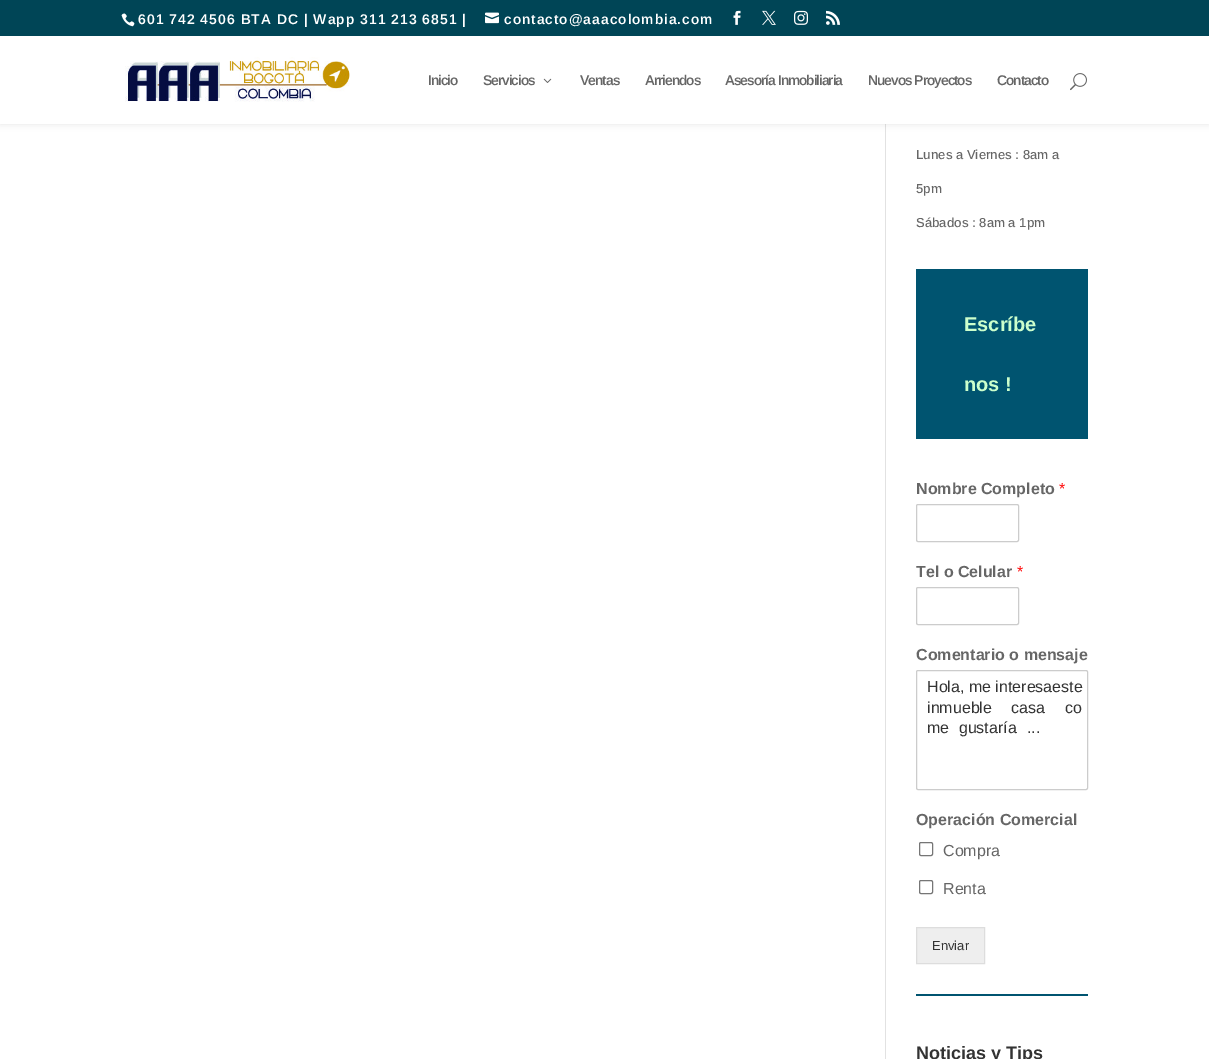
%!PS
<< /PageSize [1209 1059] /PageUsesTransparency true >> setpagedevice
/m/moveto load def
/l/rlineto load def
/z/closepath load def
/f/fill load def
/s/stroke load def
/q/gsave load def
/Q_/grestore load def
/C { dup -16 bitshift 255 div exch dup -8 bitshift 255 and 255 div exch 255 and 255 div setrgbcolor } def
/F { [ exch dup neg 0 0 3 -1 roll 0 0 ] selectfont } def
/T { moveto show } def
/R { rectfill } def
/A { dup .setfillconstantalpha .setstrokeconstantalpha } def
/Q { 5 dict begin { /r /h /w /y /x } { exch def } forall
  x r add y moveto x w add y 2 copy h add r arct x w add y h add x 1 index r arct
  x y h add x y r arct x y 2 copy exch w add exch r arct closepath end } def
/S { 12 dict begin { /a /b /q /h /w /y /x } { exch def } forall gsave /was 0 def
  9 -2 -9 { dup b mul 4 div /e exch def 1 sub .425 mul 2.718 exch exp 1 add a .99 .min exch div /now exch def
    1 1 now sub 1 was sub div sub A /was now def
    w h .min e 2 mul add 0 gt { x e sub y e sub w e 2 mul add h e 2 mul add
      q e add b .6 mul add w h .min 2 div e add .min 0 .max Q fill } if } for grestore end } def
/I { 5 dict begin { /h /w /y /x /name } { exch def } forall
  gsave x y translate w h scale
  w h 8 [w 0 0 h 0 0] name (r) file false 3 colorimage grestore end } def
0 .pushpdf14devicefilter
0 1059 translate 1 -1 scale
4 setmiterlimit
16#FFFFFF C
0 0 1209 1059 R
16#E2E2E2 C
885 124 1 935 R
16#000000 C
0 36 1209 88 0 3.5 .1 S
16#004556 C
0 0 1209 36 R
(1.rgb) 121 13 14 14 I
/Arimo-SemiBold 14 F
16#FFFFFF C
138 24 m 1 0 (601 742 4506 BTA DC | Wapp 311 213 6851 |) ashow
(2.rgb) 485 12 14 12 I
504 24 m 1 0 (contacto@aaacolombia.com) ashow
(3.rgb) 733 10 8 15 I
(4.rgb) 762 10 14 15 I
(5.rgb) 794 10 14 15 I
(6.rgb) 826 10 14 15 I
0 36 1209 88 R
(7.rgb) 125 57 225 45 I
16#666666 C
428 85 m -1 0 (Inicio) ashow
483 85 m -1 0 (Servicios) ashow
(8.rgb) 543 78 9 5 I
580 85 m -1 0 (Ventas) ashow
645 85 m -1 0 (Arriendos) ashow
725 85 m -1 0 (Asesoría Inmobiliaria) ashow
868 85 m -1 0 (Nuevos Proyectos) ashow
997 85 m -1 0 (Contacto) ashow
(9.rgb) 1070 73 17 18 I
/Arimo-Medium 13 F
(Lunes a Viernes : 8am a) 916 159 T
(5pm) 916 193 T
(Sábados : 8am a 1pm) 916 227 T
16#005470 C
916 269 172 170 R
/Arimo-Bold 20 F
16#CCFFCC C
(Escríbe) 964 331 T
(nos !) 964 391 T
/Arimo-Bold 16 F
16#666666 C
(Nombre Completo) 916 494 T
/Arimo-Regular 16 F
16#FF0000 C
(*) 1059 494 T
16#CCCCCC C
916.5 504.5 102 37 1.5 Q s
/Arimo-Bold 16 F
16#666666 C
(Tel o Celular) 916 577 T
/Arimo-Regular 16 F
16#FF0000 C
(*) 1017 577 T
16#CCCCCC C
916.5 587.5 102 37 1.5 Q s
/Arimo-Bold 16 F
16#666666 C
(Comentario o mensaje) 916 660 T
16#CCCCCC C
916.5 670.5 171 119 1.5 Q s
/Arimo-Regular 16 F
16#333333 C
(Hola, me interesaeste) 927 692 T
927 713 m 15 0 32 (inmueble casa) widthshow
(co) 1065 713 T
927 733 m 5 0 32 (me gustaría) widthshow
(...) 1027 733 T
/Arimo-Bold 16 F
16#666666 C
(Operación Comercial) 916 825 T
16#767676 C
919.5 842.5 13 13 1.5 Q s
/Arimo-Regular 16 F
16#666666 C
(Compra) 943 856 T
16#767676 C
919.5 880.5 13 13 1.5 Q s
16#666666 C
(Renta) 943 894 T
16#EEEEEE C
916.5 927.5 m 68 0 l 0 36 l -68 0 l z q f Q_
16#DDDDDD C
s
/Arimo-Regular 13 F
16#333333 C
(Enviar) 932 950 T
16#005470 C
916 994 172 2 R
/Arimo-Bold 18 F
16#333333 C
(Noticias y Tips) 916 1059 T
.poppdf14devicefilter showpage
